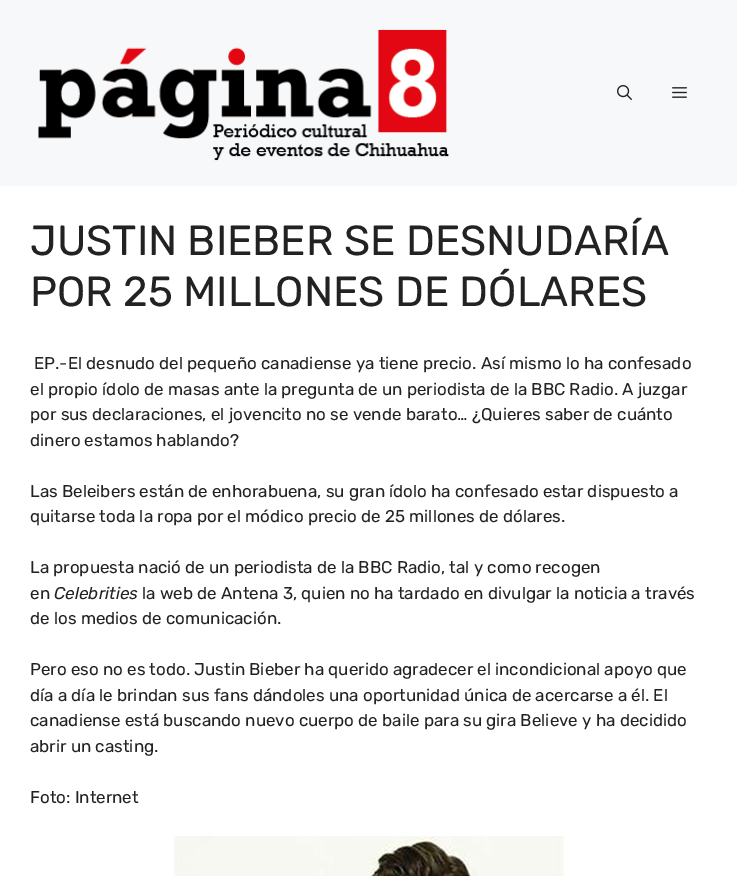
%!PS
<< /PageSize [737 876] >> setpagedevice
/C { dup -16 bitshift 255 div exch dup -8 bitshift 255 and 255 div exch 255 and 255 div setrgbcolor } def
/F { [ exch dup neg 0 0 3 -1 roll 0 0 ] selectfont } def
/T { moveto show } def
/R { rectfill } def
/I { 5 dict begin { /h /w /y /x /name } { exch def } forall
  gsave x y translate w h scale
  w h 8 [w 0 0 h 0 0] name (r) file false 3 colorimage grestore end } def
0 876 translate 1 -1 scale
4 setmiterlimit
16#FFFFFF C
0 0 737 876 R
16#F7F8F9 C
0 0 737 186 R
(1.rgb) 38 29 411 132 I
(2.rgb) 617 85 15 15 I
(3.rgb) 672 87 15 11 I
/Rubik-Regular 42 F
16#222222 C
(JUSTIN BIEBER SE DESNUDARÍA) 30 255 T
(POR 25 MILLONES DE DÓLARES) 30 306 T
/Rubik-Regular 17 F
(EP.-El desnudo del pequeño canadiense ya tiene precio. Así mismo lo ha confesado) 34 369 T
(el propio ídolo de masas ante la pregunta de un periodista de la BBC Radio. A juzgar) 30 395 T
(por sus declaraciones, el jovencito no se vende barato… ¿Quieres saber de cuánto) 30 420 T
(dinero estamos hablando?) 30 446 T
(Las Beleibers están de enhorabuena, su gran ídolo ha confesado estar dispuesto a) 30 497 T
(quitarse toda la ropa por el módico precio de 25 millones de dólares.) 30 522 T
(La propuesta nació de un periodista de la BBC Radio, tal y como recogen) 30 573 T
(en) 30 599 T
/Rubik-Italic 17 F
(Celebrities) 54 599 T
/Rubik-Regular 17 F
(la web de Antena 3, quien no ha tardado en divulgar la noticia a través) 142 599 T
(de los medios de comunicación.) 30 624 T
(Pero eso no es todo. Justin Bieber ha querido agradecer el incondicional apoyo que) 30 675 T
(día a día le brindan sus fans dándoles una oportunidad única de acercarse a él. El) 30 701 T
(canadiense está buscando nuevo cuerpo de baile para su gira Believe y ha decidido) 30 726 T
(abrir un casting.) 30 752 T
(Foto: Internet) 30 803 T
(4.rgb) 174 836 390 40 I
showpage
